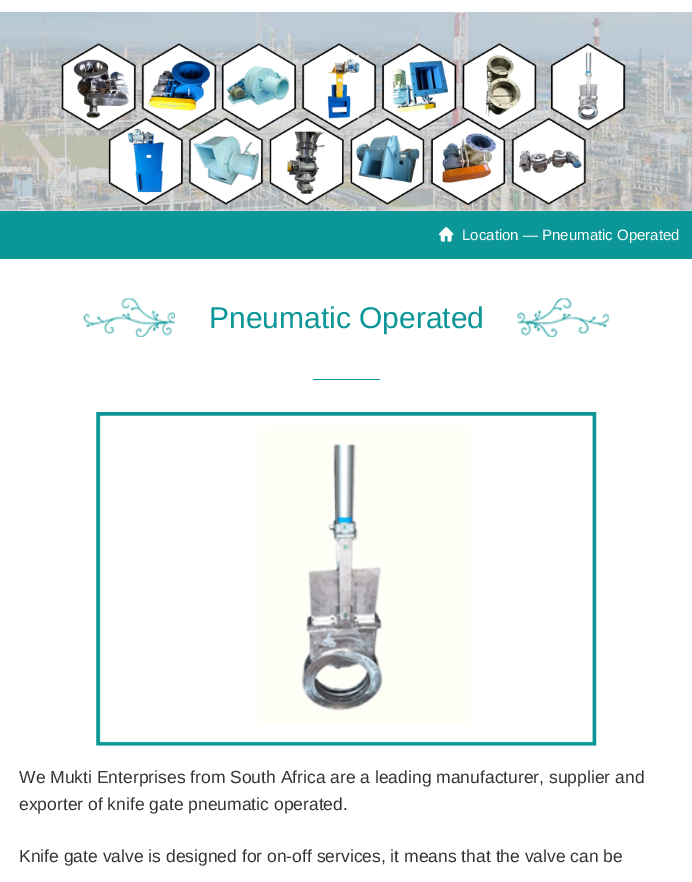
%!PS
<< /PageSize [692 882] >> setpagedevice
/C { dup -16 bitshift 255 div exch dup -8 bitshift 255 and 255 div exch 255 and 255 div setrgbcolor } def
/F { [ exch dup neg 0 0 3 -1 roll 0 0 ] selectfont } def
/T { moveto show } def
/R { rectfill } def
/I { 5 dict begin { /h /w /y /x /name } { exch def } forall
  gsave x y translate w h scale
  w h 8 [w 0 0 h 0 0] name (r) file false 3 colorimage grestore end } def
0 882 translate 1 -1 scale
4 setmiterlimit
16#FFFFFF C
0 0 692 882 R
(1.rgb) 0 12 692 199 I
16#0B9697 C
0 211 692 48 R
(2.rgb) 438 227 16 15 I
/LiberationSans-Regular 15 F
16#FFFFFF C
(Location — Pneumatic Operated) 462 240 T
(3.rgb) 83 298 526 39 I
/LiberationSans-Regular 30 F
16#0B9697 C
(Pneumatic Operated) 209 328 T
313 379 67 1 R
(4.rgb) 96 412 501 334 I
/LiberationSans-Regular 17.5 F
16#333333 C
(We Mukti Enterprises from South Africa are a leading manufacturer, supplier and) 19 783 T
(exporter of knife gate pneumatic operated.) 19 810 T
(Knife gate valve is designed for on-off services, it means that the valve can be) 19 862 T
showpage
